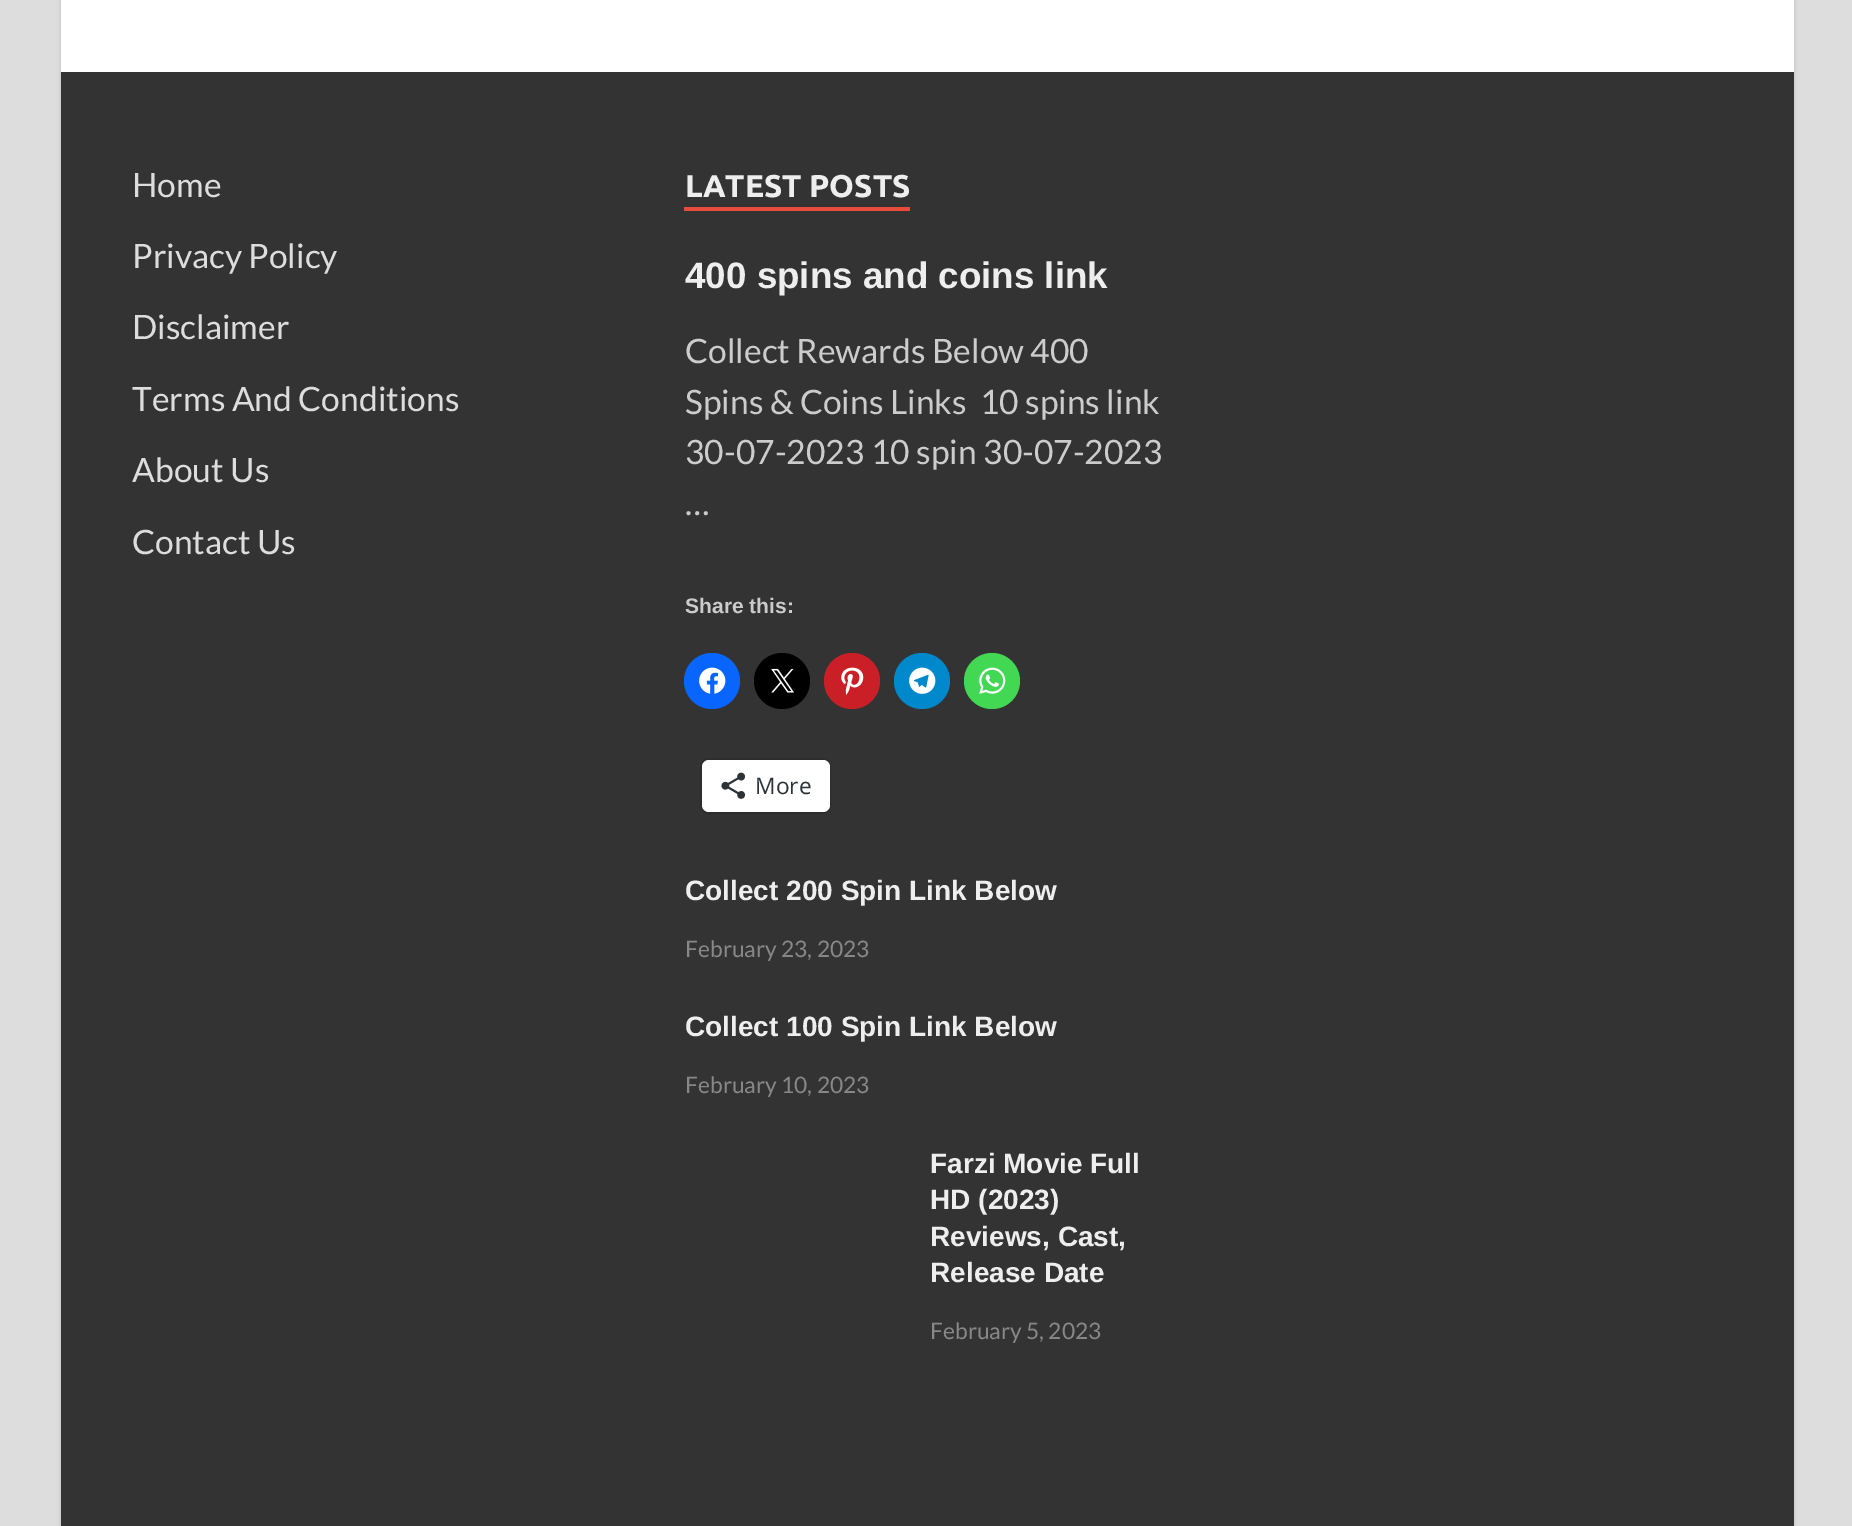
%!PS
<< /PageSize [1852 1526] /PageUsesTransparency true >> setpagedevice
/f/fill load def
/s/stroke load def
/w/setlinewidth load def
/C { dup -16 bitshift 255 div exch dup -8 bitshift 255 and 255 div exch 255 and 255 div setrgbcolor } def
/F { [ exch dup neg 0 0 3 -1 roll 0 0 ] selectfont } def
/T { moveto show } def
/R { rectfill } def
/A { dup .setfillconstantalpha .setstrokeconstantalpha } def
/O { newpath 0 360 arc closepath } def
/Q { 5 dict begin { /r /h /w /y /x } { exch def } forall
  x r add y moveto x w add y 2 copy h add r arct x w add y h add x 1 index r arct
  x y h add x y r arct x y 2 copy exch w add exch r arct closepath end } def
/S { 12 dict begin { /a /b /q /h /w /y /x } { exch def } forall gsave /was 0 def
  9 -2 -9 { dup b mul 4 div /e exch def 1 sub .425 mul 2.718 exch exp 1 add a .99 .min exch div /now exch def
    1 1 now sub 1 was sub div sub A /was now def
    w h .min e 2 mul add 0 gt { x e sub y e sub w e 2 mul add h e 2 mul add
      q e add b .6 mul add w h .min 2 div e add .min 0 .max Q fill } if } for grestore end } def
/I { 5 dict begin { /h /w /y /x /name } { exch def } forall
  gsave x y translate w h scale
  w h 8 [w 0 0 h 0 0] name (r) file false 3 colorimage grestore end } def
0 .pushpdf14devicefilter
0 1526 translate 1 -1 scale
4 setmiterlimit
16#DDDDDD C
0 0 1852 1526 R
16#BBBBBB C
61 -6 1733 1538 0 2 1 S
16#FFFFFF C
61 0 1733 72 R
16#333333 C
61 72 1733 1454 R
/Lato-Regular 33.6 F
16#DDDDDD C
(Home) 132 197 T
(Privacy Policy) 132 268 T
(Disclaimer) 132 339 T
(Terms And Conditions) 132 411 T
(About Us) 132 482 T
(Contact Us) 132 554 T
16#E74C3C C
684 207 226 4 R
/Ubuntu-Bold 31.5 F
16#EEEEEE C
(LATEST POSTS) 685 197 T
/LiberationSans-Bold 36.75 F
(400 spins and coins link) 685 288 T
/Lato-Regular 33.6 F
16#CCCCCC C
(Collect Rewards Below 400) 685 363 T
(Spins & Coins Links  10 spins link) 685 414 T
(30-07-2023 10 spin 30-07-2023) 685 464 T
(…) 685 515 T
/LiberationSans-Bold 21 F
(Share this:) 685 613 T
16#0866FF C
712 681 28 O f
(1.rgb) 699 667 27 27 I
16#000000 C
782 681 28 O f
(2.rgb) 771 668 23 25 I
16#CA1F27 C
852 681 28 O f
(3.rgb) 841 667 23 28 I
16#0088CC C
922 681 28 O f
(4.rgb) 909 667 27 27 I
16#43D854 C
992 681 28 O f
(5.rgb) 979 667 27 27 I
16#2D2D2D C
2 w
701 759 129 54 8 Q s
16#FFFFFF C
702 760 128 52 7 Q f
(6.rgb) 721 772 25 27 I
/OpenSans-Regular 22.75 F
16#2C3338 C
(More) 755 794 T
/LiberationSans-Bold 28 F
16#EEEEEE C
(Collect 200 Spin Link Below) 685 900 T
/Lato-Regular 22.75 F
16#888888 C
(February 23, 2023) 685 957 T
/LiberationSans-Bold 28 F
16#EEEEEE C
(Collect 100 Spin Link Below) 685 1036 T
/Lato-Regular 22.75 F
16#888888 C
(February 10, 2023) 685 1093 T
/LiberationSans-Bold 28 F
16#EEEEEE C
(Farzi Movie Full) 930 1173 T
(HD \(2023\)) 930 1209 T
(Reviews, Cast,) 930 1246 T
(Release Date) 930 1282 T
/Lato-Regular 22.75 F
16#888888 C
(February 5, 2023) 930 1339 T
.poppdf14devicefilter showpage
